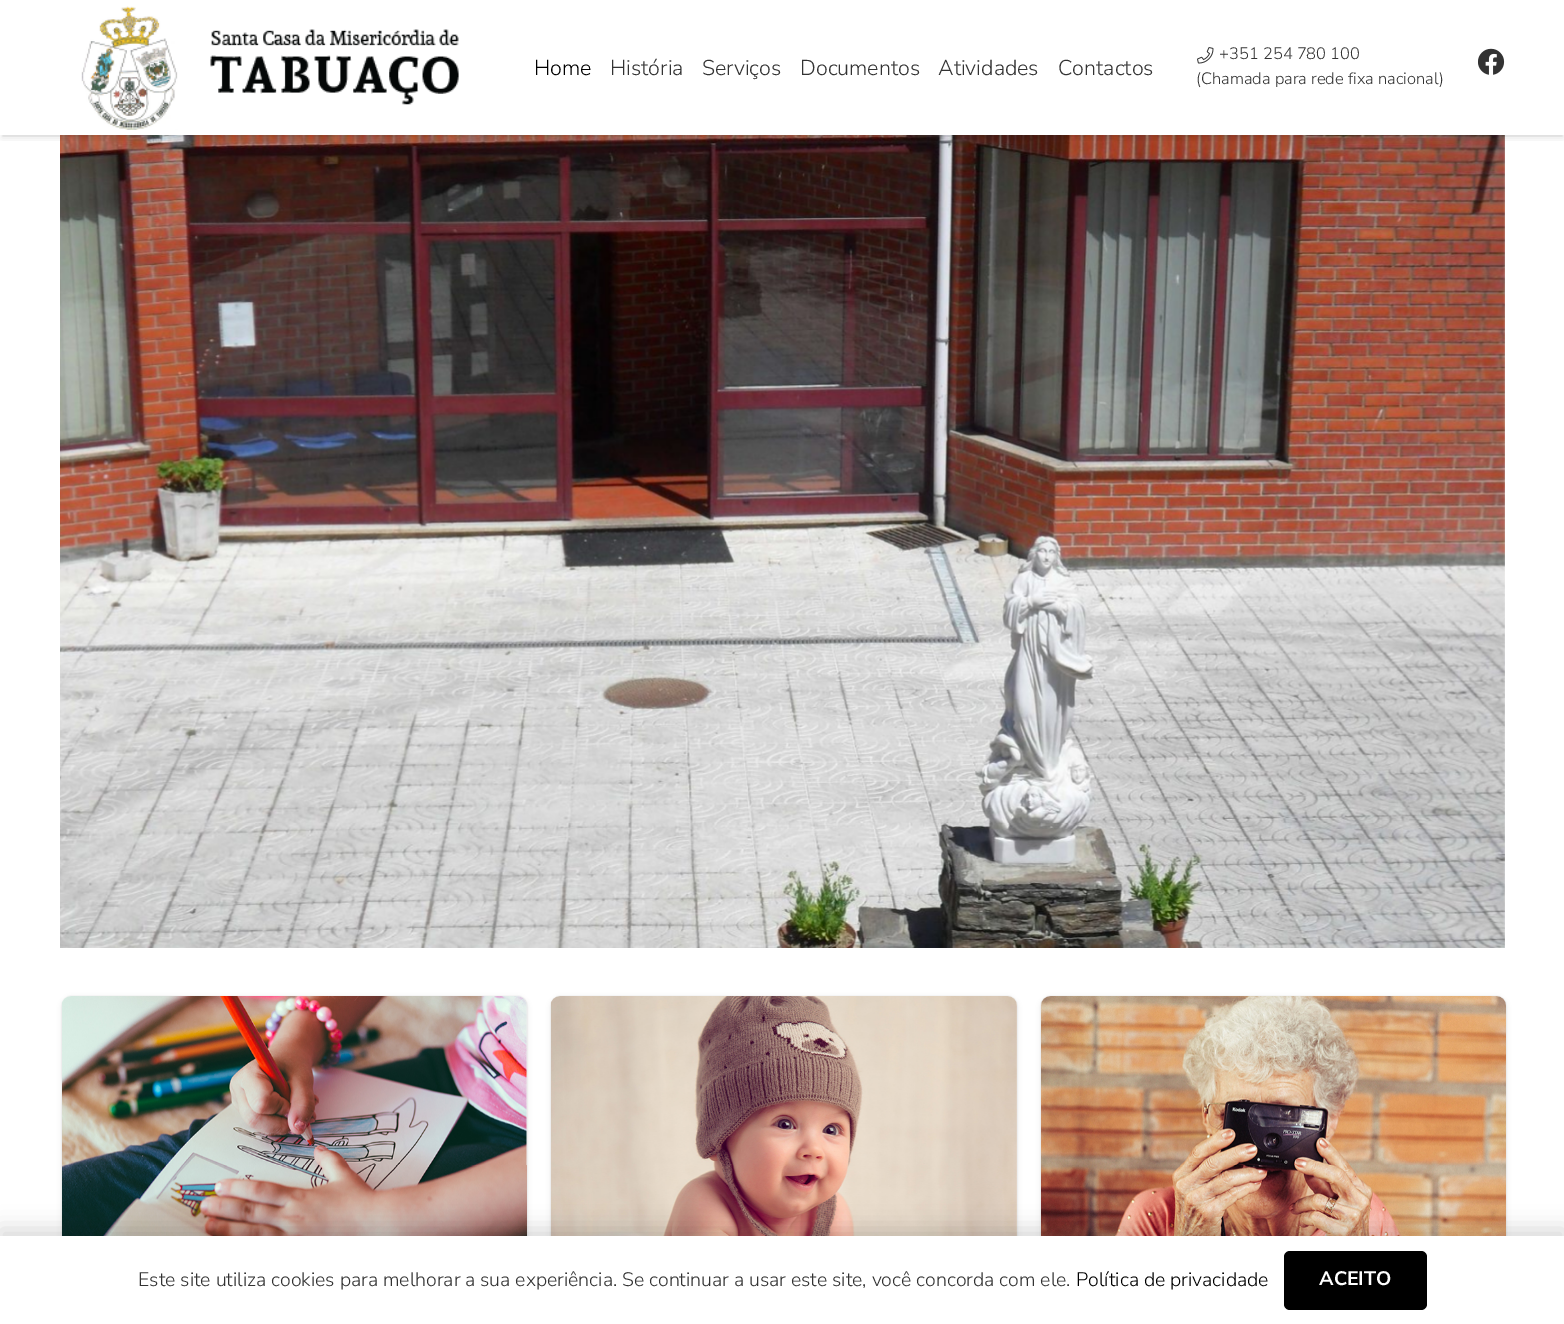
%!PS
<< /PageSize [1564 1324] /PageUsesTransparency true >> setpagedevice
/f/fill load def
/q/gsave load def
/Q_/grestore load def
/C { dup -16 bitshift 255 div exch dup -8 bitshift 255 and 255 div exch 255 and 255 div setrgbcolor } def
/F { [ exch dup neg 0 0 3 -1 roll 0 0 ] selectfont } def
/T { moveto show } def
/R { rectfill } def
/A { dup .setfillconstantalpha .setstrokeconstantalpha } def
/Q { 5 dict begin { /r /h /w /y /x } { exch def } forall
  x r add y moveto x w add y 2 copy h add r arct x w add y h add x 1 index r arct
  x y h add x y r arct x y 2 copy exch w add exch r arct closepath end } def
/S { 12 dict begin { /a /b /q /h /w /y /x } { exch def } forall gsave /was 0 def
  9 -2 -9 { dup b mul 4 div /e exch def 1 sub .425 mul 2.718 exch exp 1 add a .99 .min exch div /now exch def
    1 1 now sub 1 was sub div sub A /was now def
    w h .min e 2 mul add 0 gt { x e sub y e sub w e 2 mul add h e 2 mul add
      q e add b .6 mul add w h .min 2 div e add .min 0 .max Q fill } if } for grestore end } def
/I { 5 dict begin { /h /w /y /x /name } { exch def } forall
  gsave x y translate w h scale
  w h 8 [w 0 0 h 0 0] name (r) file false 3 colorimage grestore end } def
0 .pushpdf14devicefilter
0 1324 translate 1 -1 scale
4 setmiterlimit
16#FFFFFF C
0 0 1564 1324 R
(4.rgb) 60 135 1445 813 I
q
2 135 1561 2 rectclip
16#000000 C
2 5 1561 132 0 1 .05 S
Q_
q
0 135 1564 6 rectclip
16#000000 C
2 6 1561 132 0 4 .1 S
Q_
(1.rgb) 81 6 378 124 I
/NunitoSans-Light 21.5 F
16#000000 C
(Home) 534 75 T
16#333333 C
(História) 610 75 T
(Serviços) 702 75 T
(Documentos) 800 75 T
(Atividades) 938 75 T
(Contactos) 1058 75 T
(2.rgb) 1197 47 17 17 I
/NunitoSans-Light 16.5 F
(+351 254 780 100) 1219 59 T
(\(Chamada para rede fixa nacional\)) 1196 84 T
(3.rgb) 1478 48 27 27 I
16#000000 C
62 998 465 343 9 2.5 .1 S
62 996 465 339 9 .5 .1 S
(5.rgb) 62 996 465 240 I
551 998 466 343 9 2.5 .1 S
551 996 466 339 9 .5 .1 S
(6.rgb) 551 996 466 240 I
1041 998 465 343 9 2.5 .1 S
1041 996 465 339 9 .5 .1 S
(7.rgb) 1041 996 465 240 I
0 1229 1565 88 0 11 .15 S
16#FFFFFF C
0 1236 1564 88 R
/NunitoSans-Light 19.5 F
16#333333 C
(Este site utiliza cookies para melhorar a sua experiência. Se continuar a usar este site, você concorda com ele.) 138 1286 T
16#000000 C
(Política de privacidade) 1076 1286 T
1284 1251 143 59 6 Q f
/NunitoSans-Bold 19.5 F
16#FFFFFF C
(ACEITO) 1319 1285 T
.poppdf14devicefilter showpage
